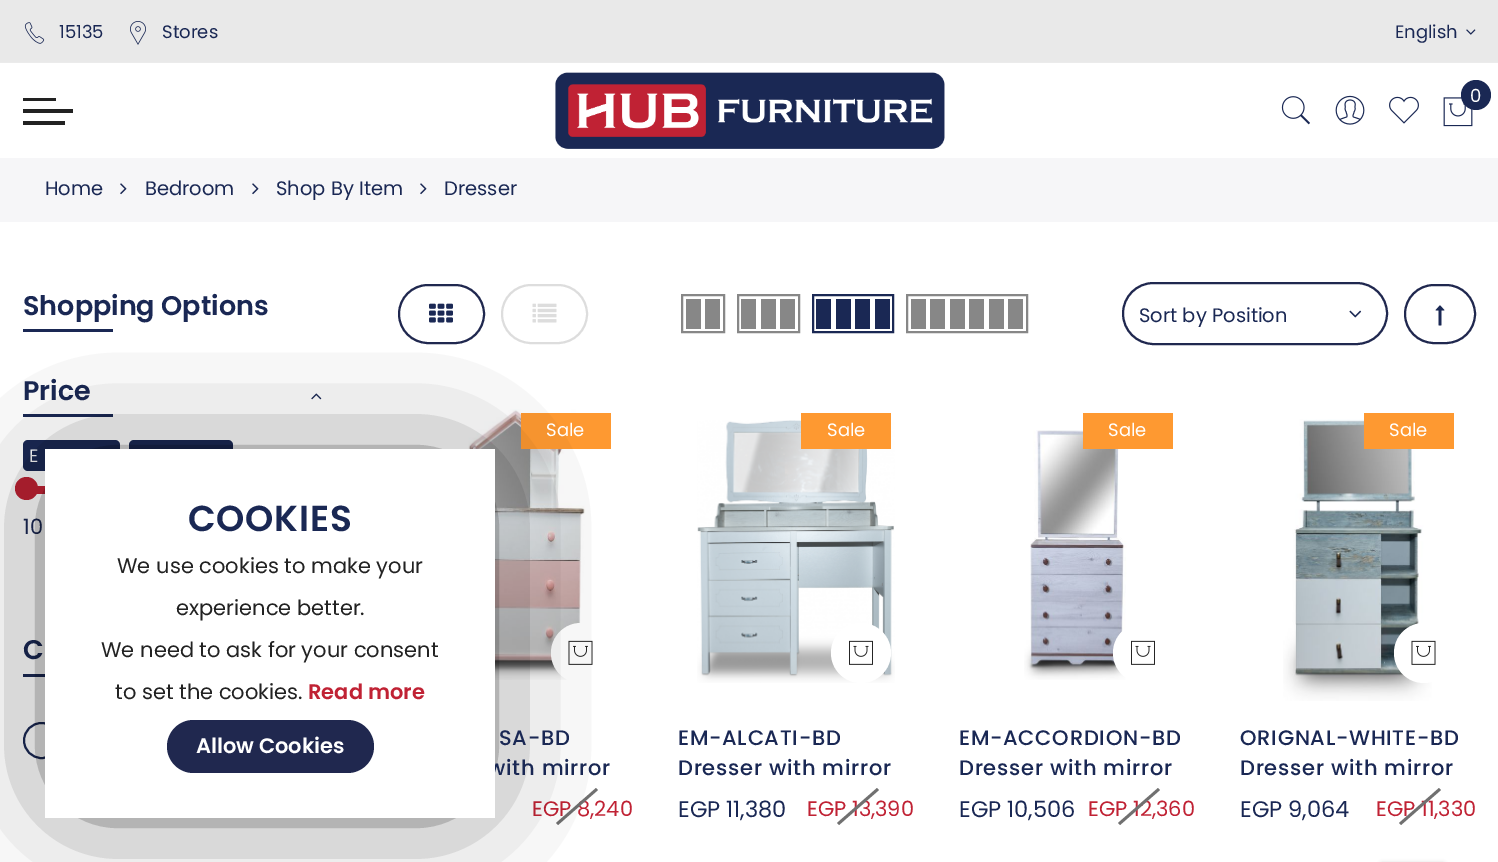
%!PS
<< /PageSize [1498 862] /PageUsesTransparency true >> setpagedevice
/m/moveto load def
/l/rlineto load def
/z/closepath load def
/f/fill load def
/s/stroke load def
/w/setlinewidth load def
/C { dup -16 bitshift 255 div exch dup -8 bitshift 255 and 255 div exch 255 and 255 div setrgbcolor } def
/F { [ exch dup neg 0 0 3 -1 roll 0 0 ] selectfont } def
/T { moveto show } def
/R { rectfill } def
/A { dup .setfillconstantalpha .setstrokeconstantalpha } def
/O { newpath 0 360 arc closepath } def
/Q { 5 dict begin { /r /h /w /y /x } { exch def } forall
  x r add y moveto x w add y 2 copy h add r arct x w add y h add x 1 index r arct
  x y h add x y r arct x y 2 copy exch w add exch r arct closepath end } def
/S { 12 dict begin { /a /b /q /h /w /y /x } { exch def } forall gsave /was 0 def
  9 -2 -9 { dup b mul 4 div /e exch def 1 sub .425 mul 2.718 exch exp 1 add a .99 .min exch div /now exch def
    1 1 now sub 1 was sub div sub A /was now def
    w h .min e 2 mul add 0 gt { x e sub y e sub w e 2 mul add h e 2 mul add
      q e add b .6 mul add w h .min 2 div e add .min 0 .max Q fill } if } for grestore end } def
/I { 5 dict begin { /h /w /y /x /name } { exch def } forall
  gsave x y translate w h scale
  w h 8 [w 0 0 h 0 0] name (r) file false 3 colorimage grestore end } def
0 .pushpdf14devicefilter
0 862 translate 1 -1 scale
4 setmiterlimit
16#FFFFFF C
0 0 1498 862 R
16#E9E9E9 C
0 0 1498 62 R
16#EBEBEB C
0 62 1498 1 R
(1.rgb) 24 22 21 22 I
/Poppins-Regular 18 F
16#1A2854 C
(15135) 59 38 T
(2.rgb) 130 21 16 24 I
(Stores) 162 38 T
(English) 1395 38 T
(3.rgb) 1466 29 10 6 I
(4.rgb) 555 72 390 77 I
(5.rgb) 1281 96 29 29 I
(6.rgb) 1335 95 30 30 I
(7.rgb) 1389 96 30 28 I
(8.rgb) 1443 97 30 30 I
1476 95 15 O f
16#FFFFFF C
(0) 1470 102 T
16#222222 C
23 98 33 3 R
23 109 50 4 R
23 121 42 4 R
16#F6F6F8 C
0 158 1498 64 R
/Poppins-Regular 19.5 F
16#1A2854 C
(Home) 45 195 T
(9.rgb) 120 183 7 12 I
(Bedroom) 145 195 T
(9.rgb) 252 183 7 12 I
(Shop By Item) 276 195 T
(9.rgb) 420 183 7 12 I
(Dresser) 444 195 T
/Poppins-SemiBold 27 F
(Shopping Options) 23 315 T
23 329 90 3 R
(Price) 23 400 T
(10.rgb) 311 393 11 7 I
23 414 90 3 R
23 440 97 31 5 Q f
/Poppins-Regular 18 F
16#FFFFFF C
(E) 29 462 T
16#1A2854 C
129 440 104 31 5 Q f
16#C02234 C
36 486 9 8 R
26.5 488.5 11.5 O f
/Poppins-Regular 21 F
16#1A2854 C
(10) 23 534 T
/Poppins-SemiBold 27 F
(C) 23 659 T
23 674 22 3 R
2 w
41.5 740.5 17.5 O s
16#20284F C
399 285 85 58 29 Q s
(11.rgb) 429 303 24 20 I
16#DDDDDD C
502 285 85 58 29 Q s
(12.rgb) 532 303 25 20 I
16#878787 C
682 295 42 37 rectstroke
705 299 15 30 R
686 299 15 30 R
738 295 61 37 rectstroke
780 299 15 30 R
761 299 15 30 R
741 299 15 30 R
16#1A2854 C
813 295 80 37 rectstroke
875 299 15 30 R
855 299 15 30 R
836 299 15 30 R
816 299 15 30 R
16#878787 C
907 295 120 37 rectstroke
1008 299 15 30 R
989 299 15 30 R
969 299 15 30 R
950 299 15 30 R
930 299 15 30 R
911 299 15 30 R
16#20284F C
1123 283 264 61 30.5 Q s
/Poppins-Regular 19.5 F
16#1A2854 C
(Sort by Position) 1139 322 T
(13.rgb) 1349 310 13 8 I
16#20284F C
1405 285 70 58 29 Q s
(14.rgb) 1435 305 10 21 I
(15.rgb) 444 409 142 271 I
16#FE9931 C
521 413 90 36 R
16#FFFFFF C
581 653 30 O f
(16.rgb) 568 640 25 25 I
/Poppins-Regular 21 F
16#C02234 C
(EGP 8,240) 532 816 T
16#707070 C
598 790 m -40 35 l -2 -2 l 40 -35 l z f
16#000000 C
81 491 372 291 0 61.5 1 S
/Poppins-Medium 21 F
16#1A2854 C
488 775 m .75 0 (with mirror) ashow
16#FFFFFF C
45 449 450 369 R
/Poppins-SemiBold 36 F
16#1A2854 C
188 531 m .75 0 (COOKIES) ashow
/Poppins-Regular 21 F
16#222222 C
(We use cookies to make your) 117 573 T
(experience better.) 176 615 T
(We need to ask for your consent) 101 657 T
(to set the cookies.) 115 699 T
/Poppins-SemiBold 21 F
16#C02234 C
(Read more) 308 699 T
16#20284F C
167 720 207 53 26.5 Q f
16#FFFFFF C
(Allow Cookies) 196 753 T
/Poppins-Regular 18 F
(Sale) 546 436 T
/Poppins-Medium 21 F
16#1A2854 C
499 745 m .75 0 (SA-BD) ashow
(17.rgb) 697 420 198 263 I
16#FE9931 C
801 413 90 36 R
/Poppins-Regular 18 F
16#FFFFFF C
(Sale) 827 436 T
861 653 30 O f
(18.rgb) 849 640 24 25 I
/Poppins-Medium 21 F
16#1A2854 C
678 745 m .75 0 (EM-ALCATI-BD) ashow
678 775 m .75 0 (Dresser with mirror) ashow
/Poppins-Regular 22.5 F
(EGP 11,380) 678 817 T
/Poppins-Regular 21 F
16#C02234 C
(EGP 13,390) 807 816 T
16#707070 C
879 790 m -40 35 l -2 -2 l 40 -35 l z f
(19.rgb) 1024 430 106 250 I
16#FE9931 C
1083 413 90 36 R
/Poppins-Regular 18 F
16#FFFFFF C
(Sale) 1108 436 T
1143 653 30 O f
(18.rgb) 1131 640 24 25 I
/Poppins-Medium 21 F
16#1A2854 C
959 745 m .75 0 (EM-ACCORDION-BD) ashow
959 775 m .75 0 (Dresser with mirror) ashow
/Poppins-Regular 22.5 F
(EGP 10,506) 959 817 T
/Poppins-Regular 21 F
16#C02234 C
(EGP 12,360) 1088 816 T
16#707070 C
1160 790 m -40 35 l -2 -2 l 40 -35 l z f
(20.rgb) 1283 419 149 282 I
16#FE9931 C
1364 413 90 36 R
/Poppins-Regular 18 F
16#FFFFFF C
(Sale) 1389 436 T
1424 653 30 O f
(16.rgb) 1411 640 25 25 I
/Poppins-Medium 21 F
16#1A2854 C
1240 745 m .75 0 (ORIGNAL-WHITE-BD) ashow
1240 775 m .75 0 (Dresser with mirror) ashow
/Poppins-Regular 22.5 F
(EGP 9,064) 1240 817 T
/Poppins-Regular 21 F
16#C02234 C
(EGP 11,330) 1376 816 T
16#707070 C
1441 790 m -40 35 l -2 -2 l 40 -35 l z f
16#000000 C
1379 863 67 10 5 2 .2 S
.poppdf14devicefilter showpage
